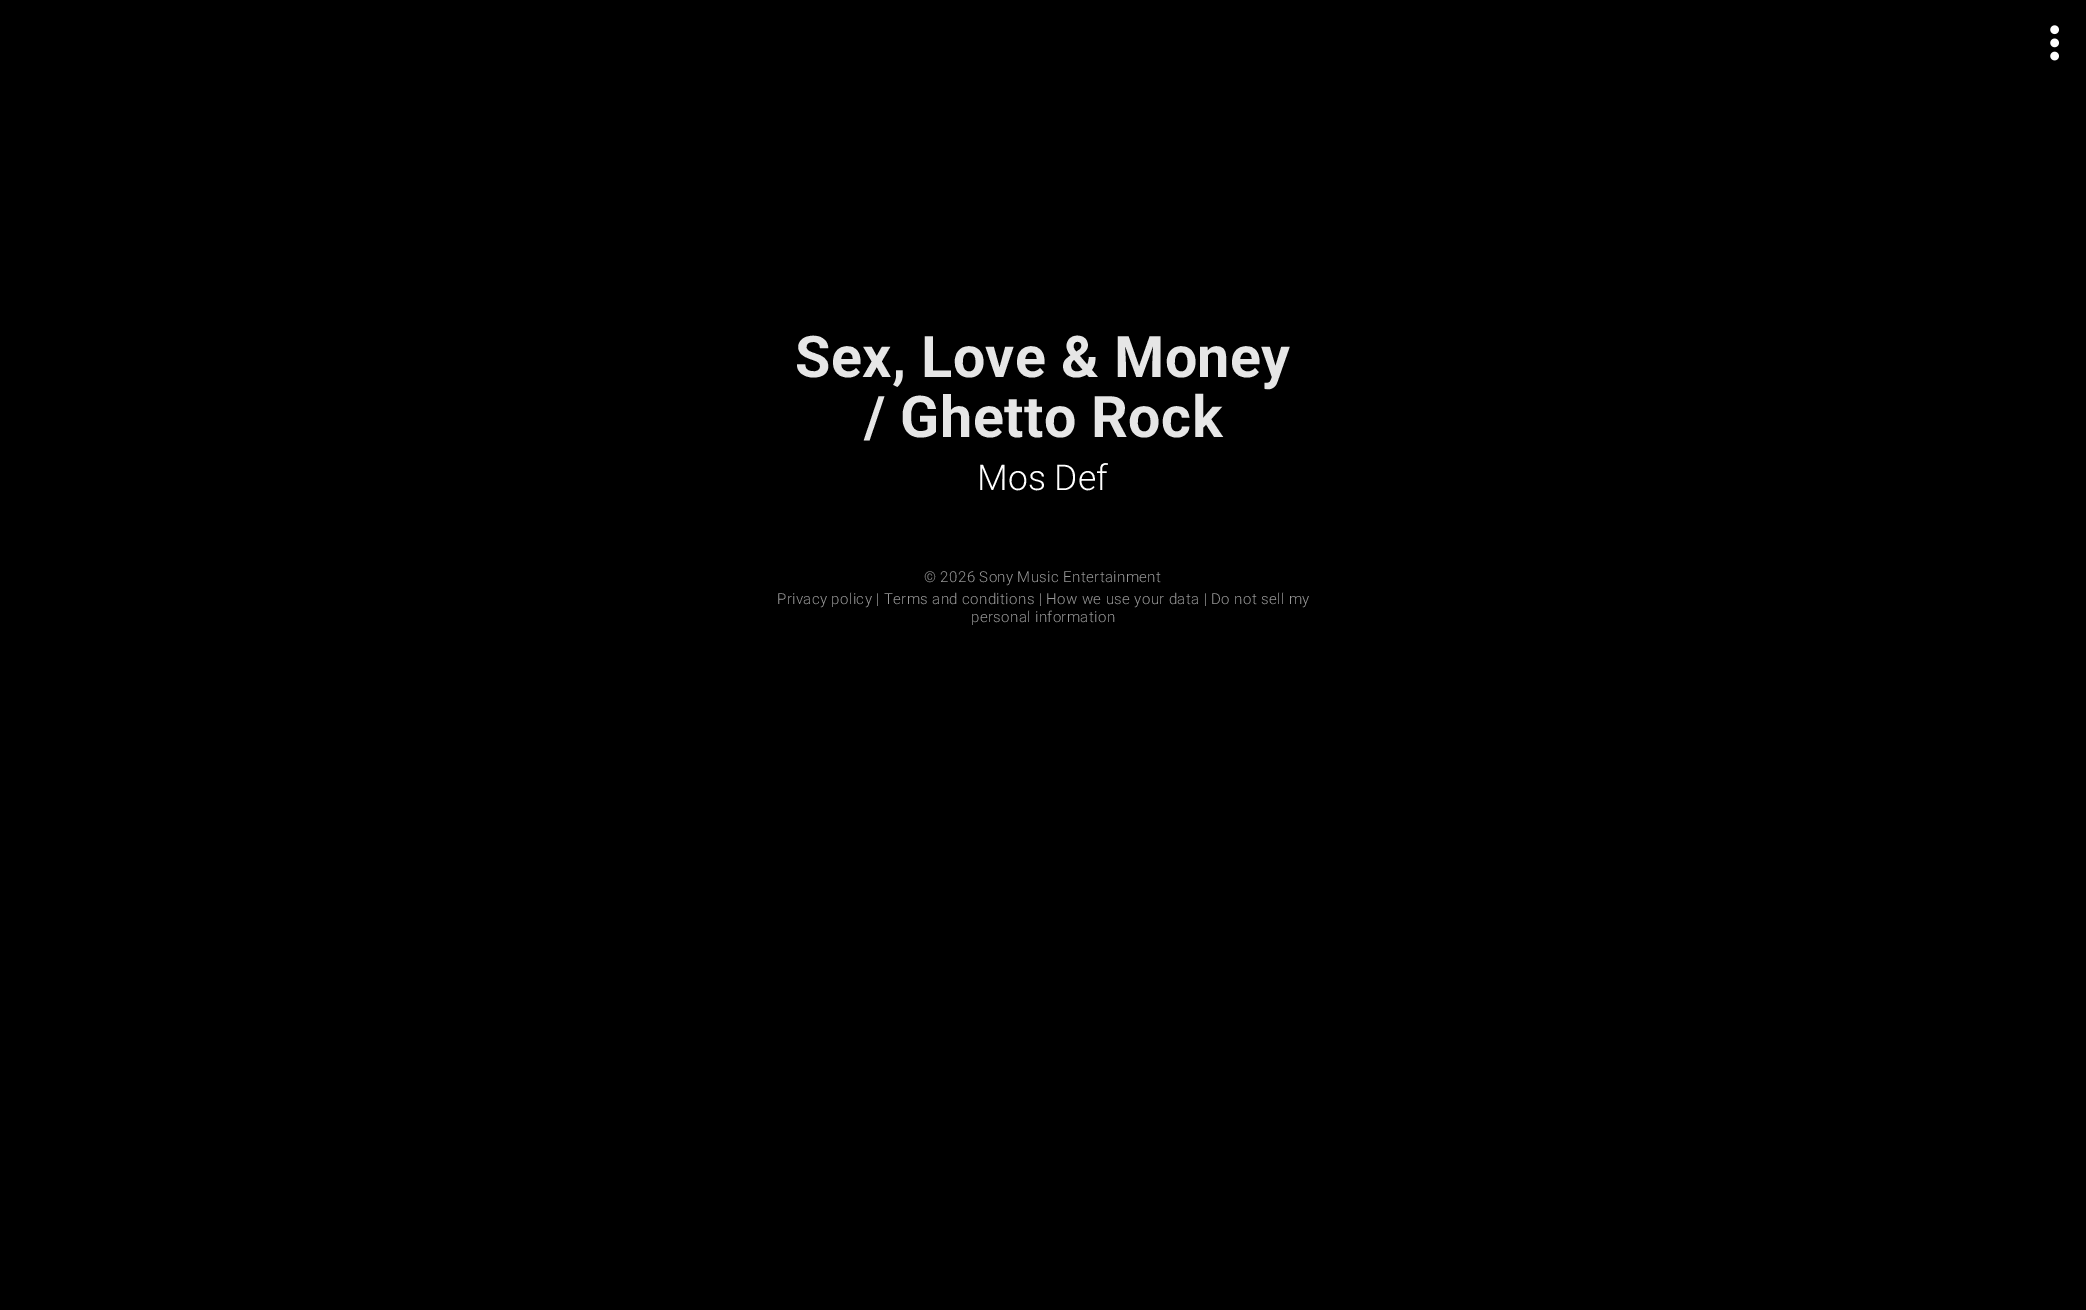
%!PS
<< /PageSize [2086 1310] >> setpagedevice
/m/moveto load def
/C { dup -16 bitshift 255 div exch dup -8 bitshift 255 and 255 div exch 255 and 255 div setrgbcolor } def
/F { [ exch dup neg 0 0 3 -1 roll 0 0 ] selectfont } def
/T { moveto show } def
/R { rectfill } def
/I { 5 dict begin { /h /w /y /x /name } { exch def } forall
  gsave x y translate w h scale
  w h 8 [w 0 0 h 0 0] name (r) file false 3 colorimage grestore end } def
0 1310 translate 1 -1 scale
4 setmiterlimit
16#000000 C
0 0 2086 1310 R
(1.rgb) 2050 25 9 36 I
/Roboto-Bold 57.5 F
16#E6E6E6 C
795 377 m .38 0 (Sex, Love & Money) ashow
864 437 m .38 0 (/ Ghetto Rock) ashow
/Roboto-Light 35.5 F
16#FFFFFF C
(Mos Def) 977 490 T
/Roboto-Light 15 F
16#999999 C
924 582 m .38 0 (© 2026 Sony Music Entertainment) ashow
777 604 m .38 0 (Privacy policy | Terms and conditions | How we use your data | Do not sell my) ashow
971 622 m .38 0 (personal information) ashow
showpage
